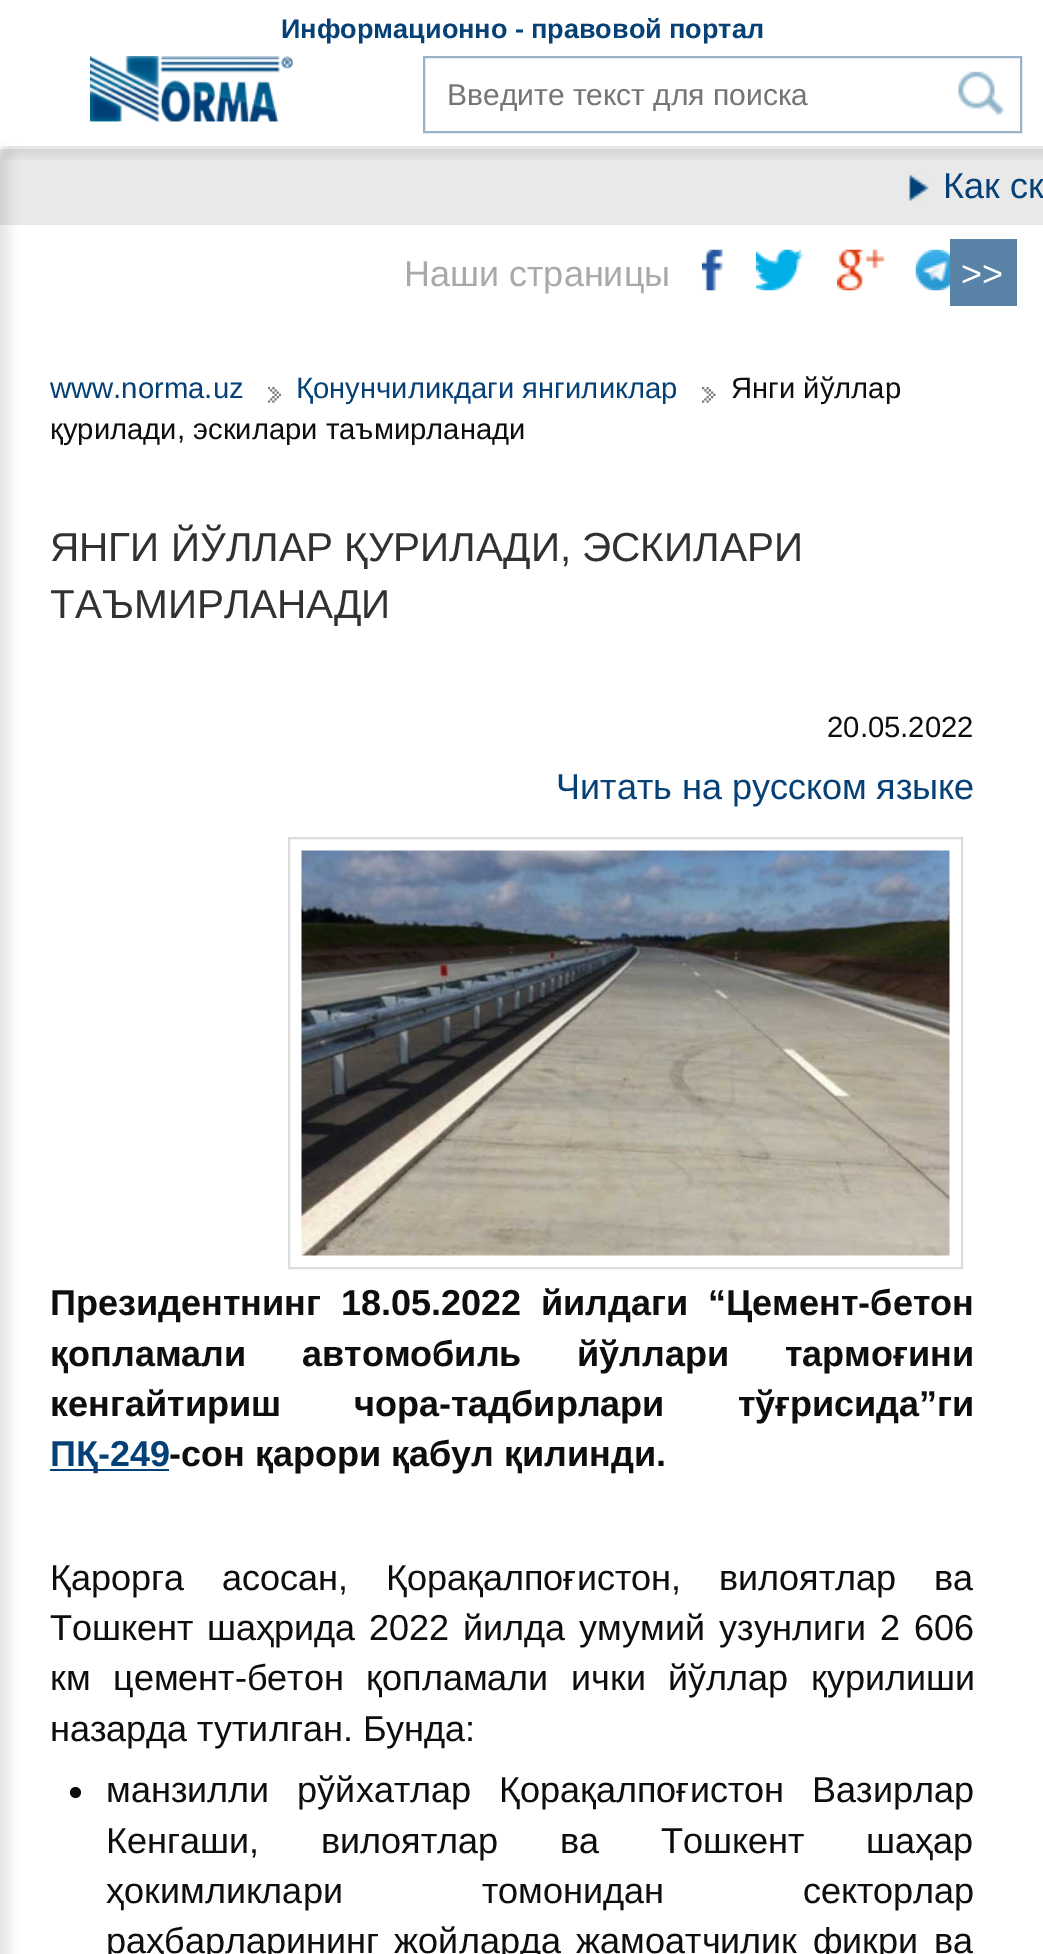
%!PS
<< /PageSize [1043 1954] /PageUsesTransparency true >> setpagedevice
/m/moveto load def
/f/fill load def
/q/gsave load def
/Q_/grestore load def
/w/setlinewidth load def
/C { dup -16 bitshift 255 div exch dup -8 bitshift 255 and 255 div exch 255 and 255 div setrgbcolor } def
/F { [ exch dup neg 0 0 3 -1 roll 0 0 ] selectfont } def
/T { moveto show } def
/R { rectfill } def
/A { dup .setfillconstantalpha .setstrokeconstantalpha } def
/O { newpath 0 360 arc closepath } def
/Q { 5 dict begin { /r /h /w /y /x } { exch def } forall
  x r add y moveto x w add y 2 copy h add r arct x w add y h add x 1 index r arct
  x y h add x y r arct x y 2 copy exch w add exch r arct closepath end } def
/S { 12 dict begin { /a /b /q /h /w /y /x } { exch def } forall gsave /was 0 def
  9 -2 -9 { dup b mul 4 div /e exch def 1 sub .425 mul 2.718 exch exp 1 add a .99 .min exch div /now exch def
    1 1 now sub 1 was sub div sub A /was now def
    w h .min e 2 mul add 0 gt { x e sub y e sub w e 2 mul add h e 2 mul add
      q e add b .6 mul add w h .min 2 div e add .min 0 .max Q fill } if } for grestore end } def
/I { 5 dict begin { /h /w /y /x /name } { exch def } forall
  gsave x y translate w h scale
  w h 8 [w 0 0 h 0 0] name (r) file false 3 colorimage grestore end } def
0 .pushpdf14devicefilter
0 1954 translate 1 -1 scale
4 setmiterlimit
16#FFFFFF C
0 0 1043 1954 R
16#E9E9E9 C
0 149 1043 76 R
q
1 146 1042 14 rectclip
16#000000 C
5 9 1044 146 0 5.5 .1 S
Q_
/LiberationSans-Bold 27 F
16#054176 C
(Информационно - правовой портал) 281 38 T
(1.rgb) 90 56 203 66 I
16#9BB3C8 C
2 w
424 57 597 75 rectstroke
/LiberationSans-Regular 30 F
16#757575 C
(Введите текст для поиска) 447 105 T
(2.rgb) 958 71 46 45 I
16#000000 C
-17 151 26 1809 0 5.5 .1 S
(3.rgb) 905 173 30 32 I
/LiberationSans-Regular 36 F
16#054176 C
(Как ск) 943 198 T
16#A9A9A9 C
(Наши страницы) 404 286 T
(4.rgb) 702 249 21 42 I
(5.rgb) 756 249 48 42 I
(6.rgb) 837 249 48 42 I
(7.rgb) 915 249 35 42 I
16#5982A7 C
950 239 67 67 R
16#FFFFFF C
(>>) 961 286 T
(8.rgb) 702 387 14 16 I
/LiberationSans-Regular 29.25 F
16#0E0E0E C
(Янги йўллар) 731 398 T
(қурилади, эскилари таъмирланади) 50 439 T
16#054176 C
(www.norma.uz) 50 398 T
(9.rgb) 268 387 13 16 I
(Қонунчиликдаги янгиликлар) 296 398 T
/LiberationSans-Regular 40.5 F
16#303132 C
(ЯНГИ ЙЎЛЛАР ҚУРИЛАДИ, ЭСКИЛАРИ) 50 561 T
(ТАЪМИРЛАНАДИ) 50 618 T
/LiberationSans-Regular 29.25 F
16#0E0E0E C
(20.05.2022) 827 737 T
/LiberationSans-Regular 36 F
16#054176 C
(Читать на русском языке) 556 799 T
16#DCDCDC C
289 838 673 430 rectstroke
(10.rgb) 301 850 649 406 I
/LiberationSans-Bold 36 F
16#0E0E0E C
50 1315 m 10 0 32 (Президентнинг 18.05.2022 йилдаги “Цемент-бетон) widthshow
50 1366 m 45.5 0 32 (қопламали автомобиль йўллари тармоғини) widthshow
50 1416 m 63 0 32 (кенгайтириш чора-тадбирлари тўғрисида”ги) widthshow
16#054176 C
50 1469 119 2 R
(ПҚ-249) 50 1466 T
16#0E0E0E C
(-сон қарори қабул қилинди.) 169 1466 T
/LiberationSans-Regular 36 F
50 1590 m 28 0 32 (Қарорга асосан, Қорақалпоғистон, вилоятлар ва) widthshow
50 1640 m 4 0 32 (Тошкент шаҳрида 2022 йилда умумий узунлиги 2 606) widthshow
50 1690 m 12.5 0 32 (км цемент-бетон қопламали ички йўллар қурилиши) widthshow
(назарда тутилган. Бунда:) 50 1741 T
75.5 1792.5 5.5 O f
106 1802 m 18 0 32 (манзилли рўйхатлар Қорақалпоғистон Вазирлар) widthshow
106 1853 m 52 0 32 (Кенгаши, вилоятлар ва Тошкент шаҳар) widthshow
106 1903 m 129 0 32 (ҳокимликлари томонидан секторлар) widthshow
106 1953 m 5.5 0 32 (раҳбарларининг жойларда жамоатчилик фикри ва) widthshow
.poppdf14devicefilter showpage
